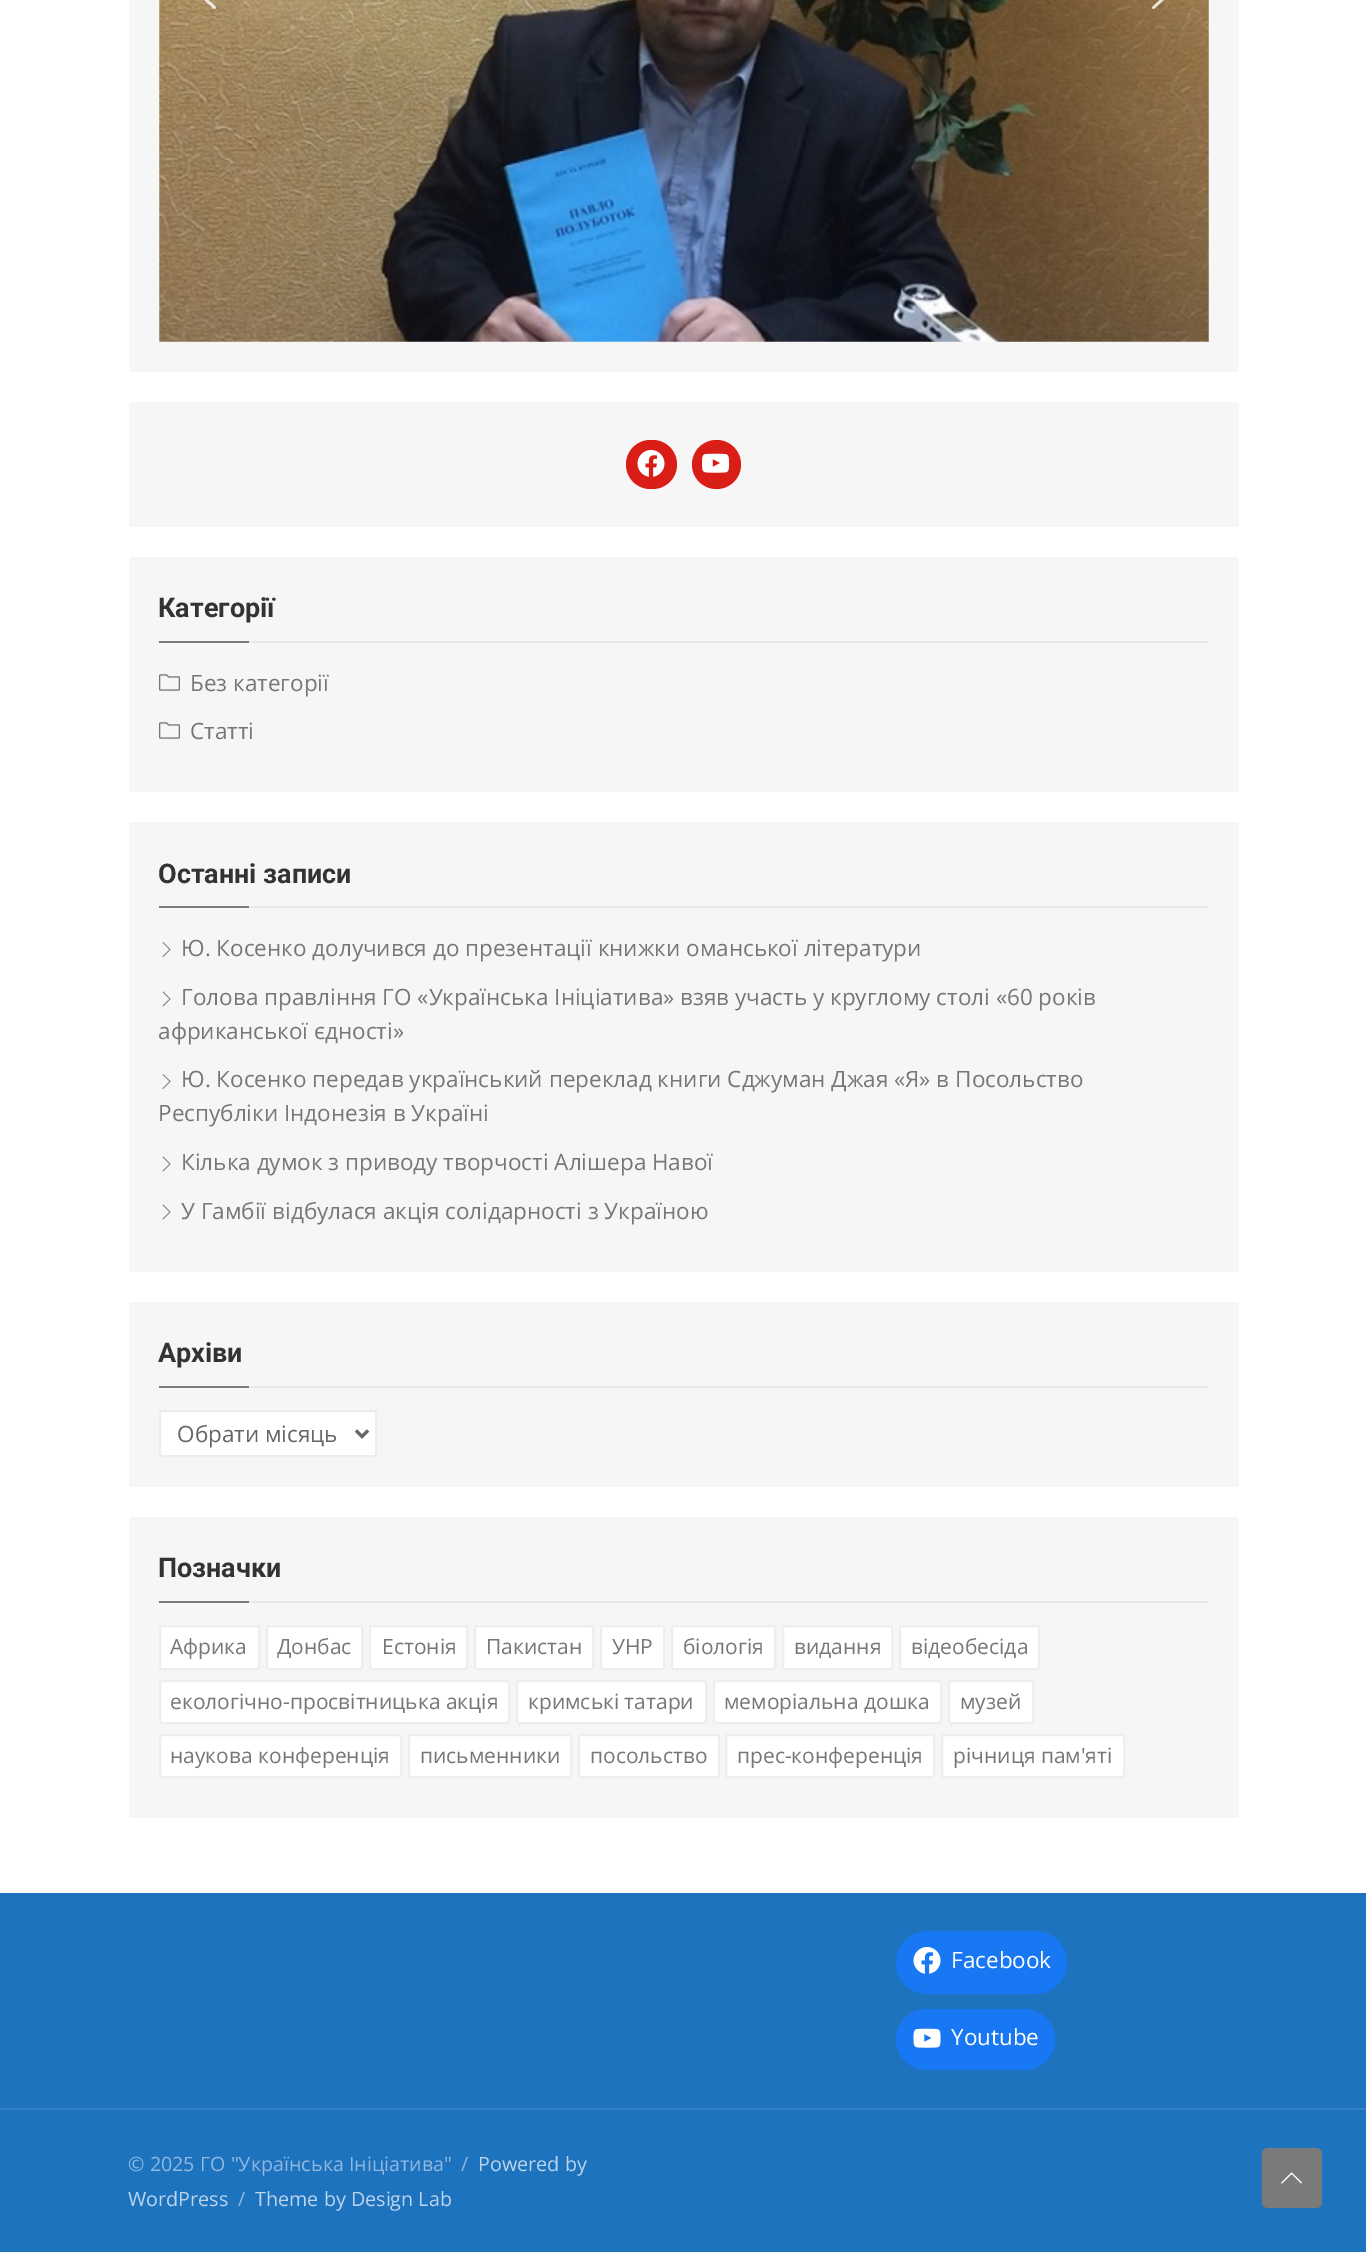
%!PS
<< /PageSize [1366 2252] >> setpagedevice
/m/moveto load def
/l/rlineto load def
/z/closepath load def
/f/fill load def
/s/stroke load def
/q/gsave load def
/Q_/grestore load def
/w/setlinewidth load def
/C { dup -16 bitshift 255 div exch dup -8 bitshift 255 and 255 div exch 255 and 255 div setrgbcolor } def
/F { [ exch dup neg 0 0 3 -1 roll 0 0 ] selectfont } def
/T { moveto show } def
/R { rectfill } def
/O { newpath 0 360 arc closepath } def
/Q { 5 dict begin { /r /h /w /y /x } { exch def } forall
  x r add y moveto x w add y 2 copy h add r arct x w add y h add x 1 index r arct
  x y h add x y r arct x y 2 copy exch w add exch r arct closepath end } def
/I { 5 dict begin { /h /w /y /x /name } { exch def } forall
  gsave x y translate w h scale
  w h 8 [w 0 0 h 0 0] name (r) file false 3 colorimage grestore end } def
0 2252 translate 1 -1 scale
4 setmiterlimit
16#FFFFFF C
0 0 1366 2252 R
16#F6F6F6 C
129 -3 1110 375 3 Q f
(1.rgb) 159 0 1050 342 I
(2.rgb) 204 0 12 9 I
(3.rgb) 1152 0 12 9 I
129 402 1110 125 3 Q f
16#D91E18 C
626 440 51 49 24.5 Q f
(4.rgb) 637 450 28 27 I
716.5 464.5 24.5 O f
(5.rgb) 702 453 28 20 I
16#F6F6F6 C
129 557 1110 235 3 Q f
16#E8E8E8 C
249 641 960 2 R
/Roboto-Bold 27 F
16#333333 C
(Категорії) 158 617 T
16#7A7A7A C
159 641 90 2 R
(6.rgb) 159 674 21 17 I
/OpenSans-Regular 22.5 F
16#777777 C
(Без категорії) 190 691 T
(6.rgb) 159 722 21 17 I
(Статті) 190 739 T
16#F6F6F6 C
129 822 1110 450 3 Q f
16#E8E8E8 C
249 906 960 2 R
/Roboto-Bold 27 F
16#333333 C
(Останні записи) 158 883 T
16#7A7A7A C
159 906 90 2 R
(7.rgb) 162 942 9 15 I
/OpenSans-Regular 22.5 F
16#777777 C
(Ю. Косенко долучився до презентації книжки оманської літератури) 181 956 T
(8.rgb) 162 991 9 16 I
(Голова правління ГО «Українська Ініціатива» взяв участь у круглому столі «60 років) 181 1005 T
(африканської єдності») 158 1039 T
(7.rgb) 162 1074 9 15 I
(Ю. Косенко передав український переклад книги Сджуман Джая «Я» в Посольство) 181 1087 T
(Республіки Індонезія в Україні) 158 1121 T
(8.rgb) 162 1156 9 16 I
(Кілька думок з приводу творчості Алішера Навої) 181 1170 T
(8.rgb) 162 1204 9 16 I
(У Гамбії відбулася акція солідарності з Україною) 181 1219 T
16#F6F6F6 C
129 1302 1110 185 3 Q f
16#E8E8E8 C
249 1386 960 2 R
/Roboto-Bold 27 F
16#333333 C
(Архіви) 158 1362 T
16#7A7A7A C
159 1386 90 2 R
16#FFFFFF C
160 1411 m 216 0 l 0 45 l -216 0 l z q f Q_
16#EDEDED C
2 w
s
16#666666 C
3 w
356 1430.5 m 6 6 l 6 -6 l s
/OpenSans-Regular 22.5 F
(Обрати місяць) 177 1442 T
16#F6F6F6 C
129 1517 1110 301 3 Q f
16#E8E8E8 C
249 1601 960 2 R
/Roboto-Bold 27 F
16#333333 C
(Позначки) 158 1577 T
16#7A7A7A C
159 1601 90 2 R
16#FFFFFF C
160 1626 99 43 2 Q q f Q_
16#EEEEEE C
2 w
s
/OpenSans-Regular 21 F
16#777777 C
(Африка) 170 1654 T
16#FFFFFF C
267 1626 95 43 2 Q q f Q_
16#EEEEEE C
s
16#777777 C
(Донбас) 277 1654 T
16#FFFFFF C
370 1626 97 43 2 Q q f Q_
16#EEEEEE C
s
16#777777 C
(Естонія) 382 1654 T
16#FFFFFF C
475 1626 118 43 2 Q q f Q_
16#EEEEEE C
s
16#777777 C
(Пакистан) 486 1654 T
16#FFFFFF C
601 1626 63 43 2 Q q f Q_
16#EEEEEE C
s
16#777777 C
(УНР) 612 1654 T
16#FFFFFF C
672 1626 103 43 2 Q q f Q_
16#EEEEEE C
s
16#777777 C
(біологія) 683 1654 T
16#FFFFFF C
783 1626 109 43 2 Q q f Q_
16#EEEEEE C
s
16#777777 C
(видання) 794 1654 T
16#FFFFFF C
900 1626 139 43 2 Q q f Q_
16#EEEEEE C
s
16#777777 C
(відеобесіда) 911 1654 T
16#FFFFFF C
160 1681 349 42 2 Q q f Q_
16#EEEEEE C
s
16#777777 C
(екологічно-просвітницька акція) 170 1709 T
16#FFFFFF C
517 1681 189 42 2 Q q f Q_
16#EEEEEE C
s
16#777777 C
(кримські татари) 528 1709 T
16#FFFFFF C
714 1681 227 42 2 Q q f Q_
16#EEEEEE C
s
16#777777 C
(меморіальна дошка) 724 1709 T
16#FFFFFF C
949 1681 84 42 2 Q q f Q_
16#EEEEEE C
s
16#777777 C
(музей) 960 1709 T
16#FFFFFF C
160 1735 241 42 2 Q q f Q_
16#EEEEEE C
s
16#777777 C
(наукова конференція) 170 1763 T
16#FFFFFF C
409 1735 162 42 2 Q q f Q_
16#EEEEEE C
s
16#777777 C
(письменники) 420 1763 T
16#FFFFFF C
579 1735 140 42 2 Q q f Q_
16#EEEEEE C
s
16#777777 C
(посольство) 590 1763 T
16#FFFFFF C
726 1735 208 42 2 Q q f Q_
16#EEEEEE C
s
16#777777 C
(прес-конференція) 737 1763 T
16#FFFFFF C
942 1735 182 42 2 Q q f Q_
16#EEEEEE C
s
16#777777 C
(річниця пам'яті) 953 1763 T
16#1E73BE C
0 1893 1366 359 R
16#1877F2 C
896 1931 171 63 31.5 Q f
(9.rgb) 913 1947 28 27 I
/OpenSans-Regular 22.5 F
16#FFFFFF C
(Facebook) 951 1968 T
16#1877F2 C
896 2009 159 61 30.5 Q f
(10.rgb) 913 2028 28 20 I
16#FFFFFF C
(Youtube) 951 2045 T
16#3581C5 C
0 2108 1366 2 R
/OpenSans-Regular 19.75 F
16#8FB9DF C
(© 2025 ГО "Українська Ініціатива") 128 2171 T
(/) 461 2171 T
16#BCD5EC C
(Powered by) 478 2171 T
(WordPress) 128 2206 T
16#8FB9DF C
(/) 238 2206 T
16#BCD5EC C
(Theme by Design Lab) 255 2206 T
16#7A7A7A C
1262 2148 60 60 6 Q f
(11.rgb) 1281 2172 21 12 I
showpage
